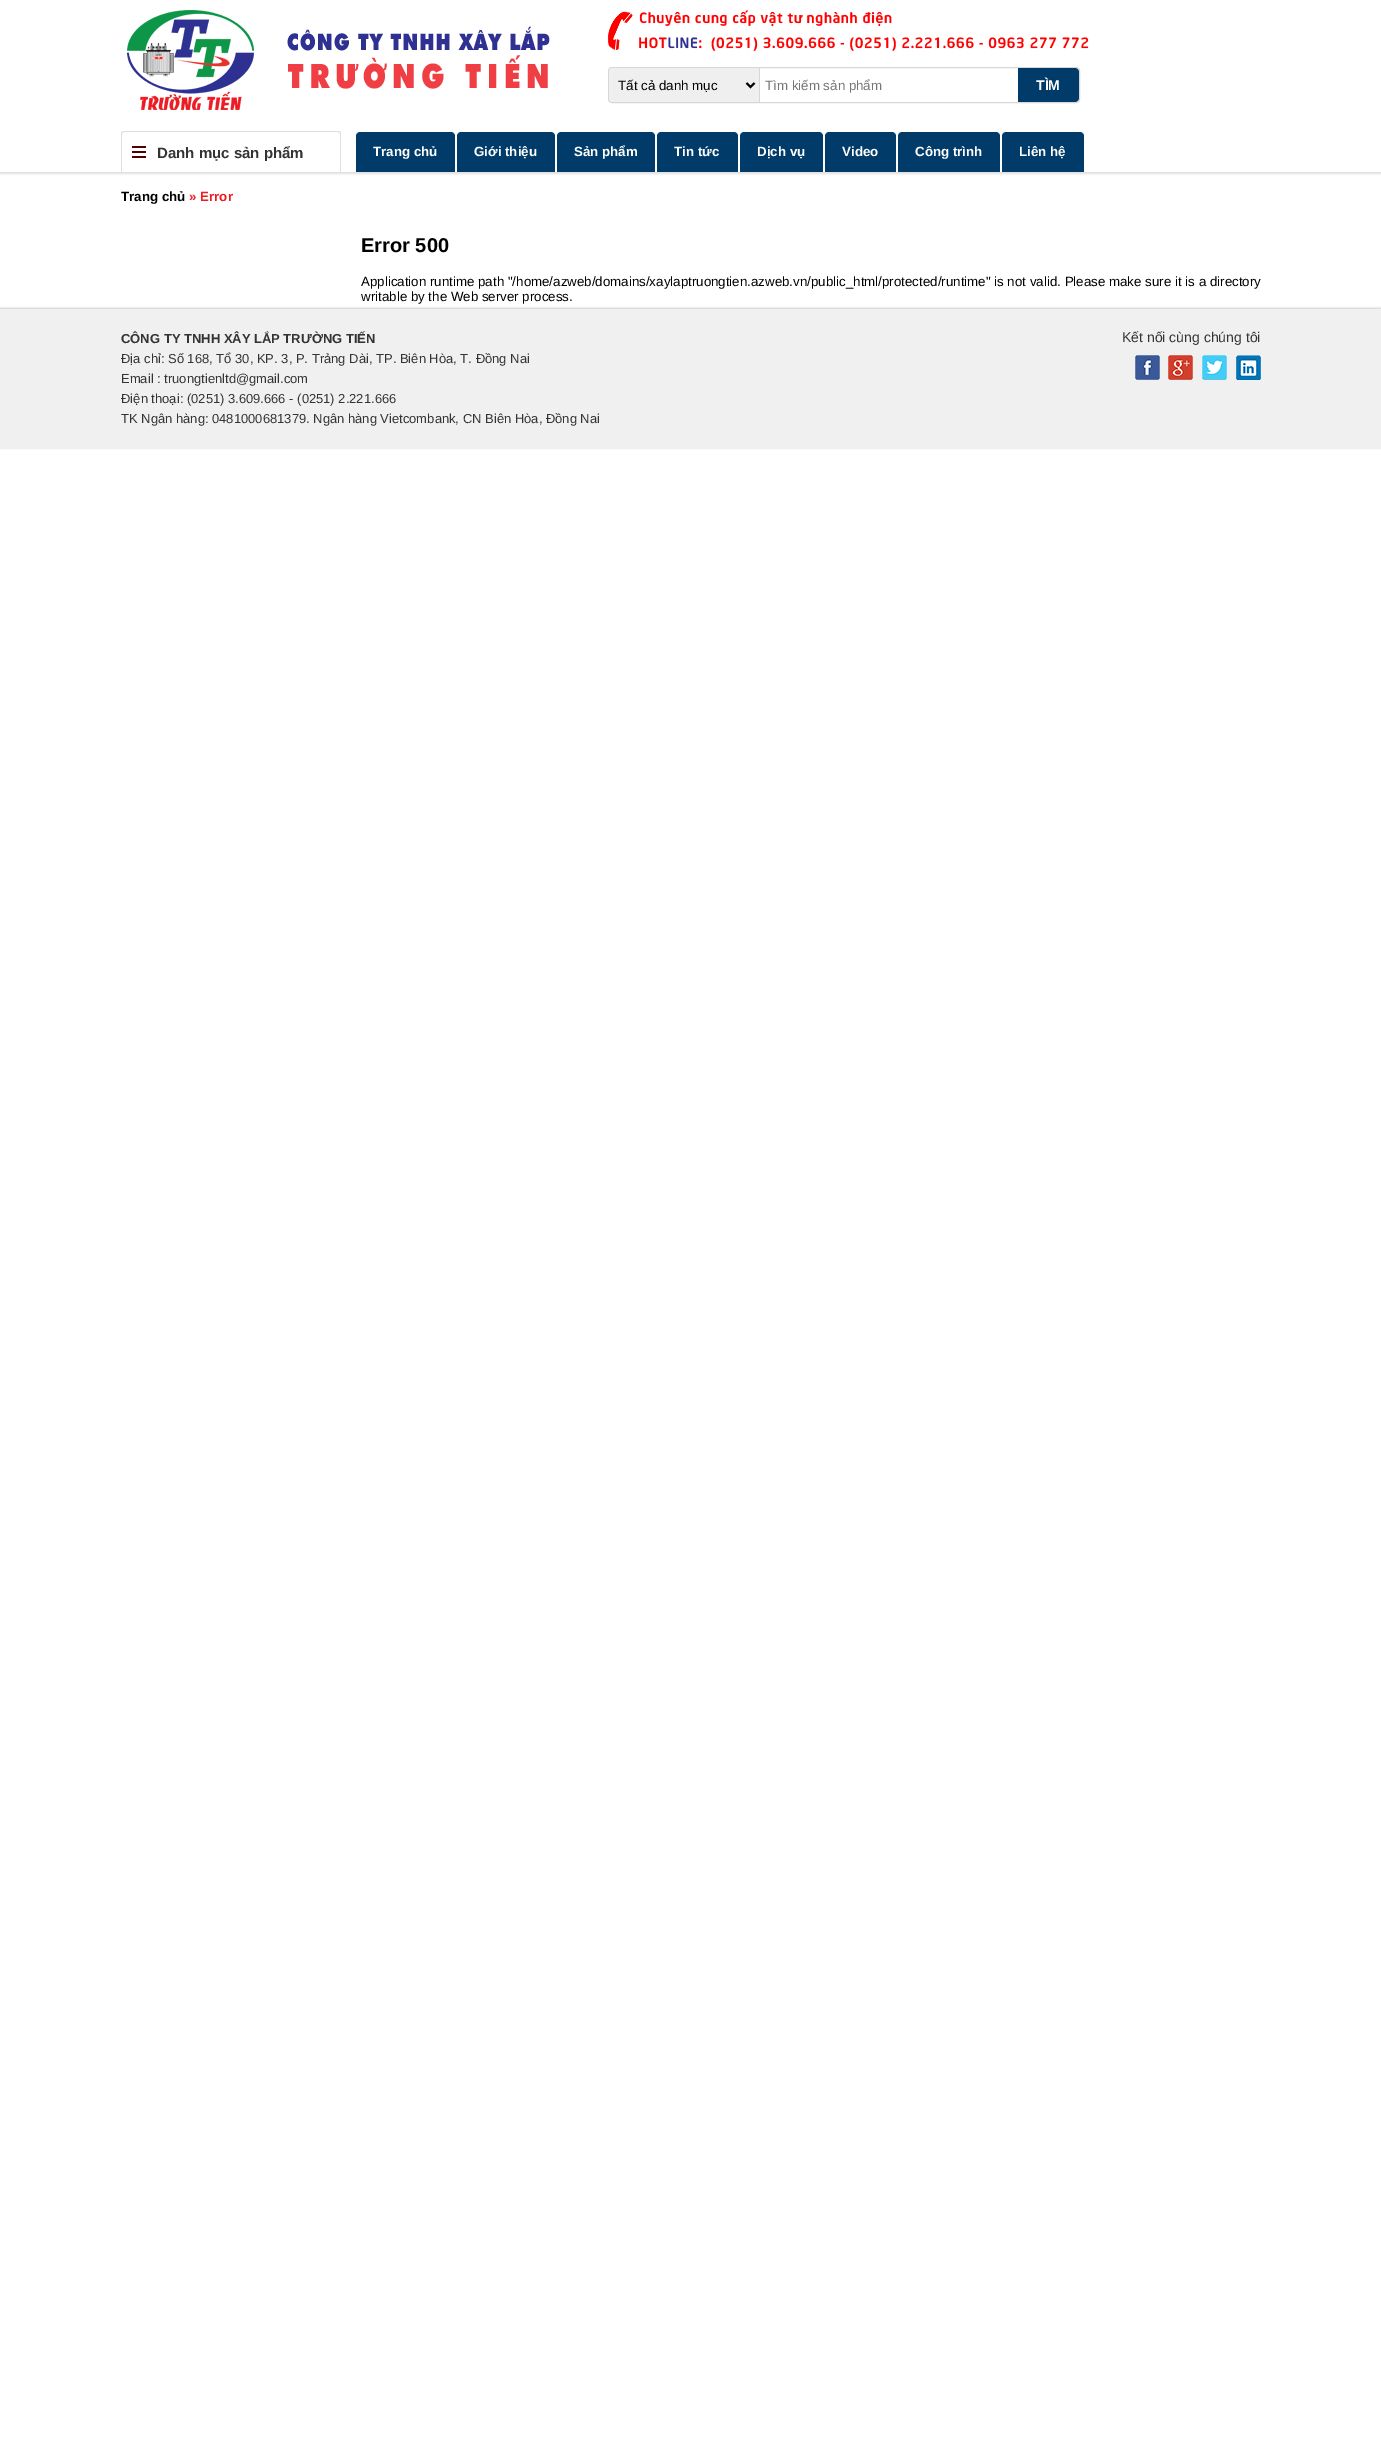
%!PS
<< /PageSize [1381 2453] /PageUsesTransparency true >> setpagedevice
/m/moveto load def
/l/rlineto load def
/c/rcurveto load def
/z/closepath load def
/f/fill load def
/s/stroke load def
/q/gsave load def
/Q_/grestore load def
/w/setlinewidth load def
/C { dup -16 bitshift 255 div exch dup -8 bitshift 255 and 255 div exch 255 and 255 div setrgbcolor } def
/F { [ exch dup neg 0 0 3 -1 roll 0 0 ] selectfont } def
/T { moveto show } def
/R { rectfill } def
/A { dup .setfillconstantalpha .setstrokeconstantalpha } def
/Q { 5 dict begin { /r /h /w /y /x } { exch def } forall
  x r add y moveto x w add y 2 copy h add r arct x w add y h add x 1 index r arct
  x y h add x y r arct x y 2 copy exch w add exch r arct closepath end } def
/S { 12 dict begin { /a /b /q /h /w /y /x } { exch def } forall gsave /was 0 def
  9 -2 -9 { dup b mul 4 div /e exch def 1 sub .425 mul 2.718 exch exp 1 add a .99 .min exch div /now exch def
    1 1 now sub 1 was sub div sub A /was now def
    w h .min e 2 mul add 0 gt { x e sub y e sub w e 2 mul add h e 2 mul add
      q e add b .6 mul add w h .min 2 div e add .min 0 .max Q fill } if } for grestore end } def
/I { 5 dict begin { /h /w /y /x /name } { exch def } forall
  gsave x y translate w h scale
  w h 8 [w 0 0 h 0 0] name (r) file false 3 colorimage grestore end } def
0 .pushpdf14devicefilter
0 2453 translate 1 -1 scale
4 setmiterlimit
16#FFFFFF C
0 0 1381 2453 R
q
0 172 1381 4 rectclip
16#DFDFDF C
-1 0 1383 174 0 1 1 S
Q_
(1.rgb) 127 10 962 100 I
16#D7D7D7 C
608.5 67.5 471 35 3.5 Q s
16#EFEFEF C
613 68 m 146 0 l 0 34 l -146 0 l -2 0 -4 -2 -4 -4 c 0 -26 l 0 -2 2 -4 4 -4 c z f
16#000000 C
2 w
746.5 83 m 4 4 l 4 -4 l s
/LiberationSans-Regular 13.33 F
(Tất cả danh mục) 618 90 T
16#D7D7D7 C
759 68 1 34 R
16#757575 C
(Tìm kiếm sản phẩm) 765 90 T
16#013B69 C
1018 68 m 57 0 l 2 0 4 2 4 4 c 0 26 l 0 2 -2 4 -4 4 c -57 0 l z f
/LiberationSans-Bold 14 F
16#FFFFFF C
(TÌM) 1036 90 T
(2.rgb) 132 146 14 12 I
16#DFDFDF C
124 131 m 214 0 l 2 0 3 1 3 3 c 0 38 l -220 0 l 0 -38 l 0 -2 1 -3 3 -3 c z 124 132 m 214 0 l 1 0 2 1 2 2 c 0 38 l -218 0 l 0 -38 l 0 -1 1 -2 2 -2 c z eofill
/LiberationSans-Bold 15 F
16#333333 C
(Danh mục sản phẩm) 157 158 T
16#013B69 C
360 132 m 91 0 l 2 0 4 2 4 4 c 0 36 l -99 0 l 0 -36 l 0 -2 2 -4 4 -4 c z f
/LiberationSans-Bold 13.33 F
16#FFFFFF C
(Trang chủ) 373 156 T
16#013B69 C
461 132 m 90 0 l 2 0 4 2 4 4 c 0 36 l -98 0 l 0 -36 l 0 -2 2 -4 4 -4 c z f
16#FFFFFF C
(Giới thiệu) 474 156 T
16#013B69 C
561 132 m 90 0 l 2 0 4 2 4 4 c 0 36 l -98 0 l 0 -36 l 0 -2 2 -4 4 -4 c z f
16#FFFFFF C
(Sản phẩm) 574 156 T
16#013B69 C
661 132 m 73 0 l 2 0 4 2 4 4 c 0 36 l -81 0 l 0 -36 l 0 -2 2 -4 4 -4 c z f
16#FFFFFF C
(Tin tức) 674 156 T
16#013B69 C
744 132 m 75 0 l 2 0 4 2 4 4 c 0 36 l -83 0 l 0 -36 l 0 -2 2 -4 4 -4 c z f
16#FFFFFF C
(Dịch vụ) 757 156 T
16#013B69 C
829 132 m 63 0 l 2 0 4 2 4 4 c 0 36 l -71 0 l 0 -36 l 0 -2 2 -4 4 -4 c z f
16#FFFFFF C
(Video) 842 156 T
16#013B69 C
902 132 m 94 0 l 2 0 4 2 4 4 c 0 36 l -102 0 l 0 -36 l 0 -2 2 -4 4 -4 c z f
16#FFFFFF C
(Công trình) 915 156 T
16#013B69 C
1006 132 m 74 0 l 2 0 4 2 4 4 c 0 36 l -82 0 l 0 -36 l 0 -2 2 -4 4 -4 c z f
16#FFFFFF C
(Liên hệ) 1019 156 T
16#000000 C
(Trang chủ) 121 201 T
16#ED1C24 C
(» Error) 189 201 T
/LiberationSans-Bold 20 F
16#000000 C
(Error 500) 361 252 T
/LiberationSans-Regular 13.33 F
(Application runtime path "/home/azweb/domains/xaylaptruongtien.azweb.vn/public_html/protected/runtime" is not valid. Please make sure it is a directory) 361 286 T
(writable by the Web server process.) 361 301 T
0 308 1381 140 0 1 .2 S
16#F1F0F0 C
0 309 1381 140 R
/LiberationSans-Bold 13 F
16#333333 C
(CÔNG TY TNHH XÂY LẮP TRƯỜNG TIẾN) 121 343 T
/LiberationSans-Regular 13 F
(Địa chỉ: Số 168, Tổ 30, KP. 3, P. Trảng Dài, TP. Biên Hòa, T. Đồng Nai) 121 363 T
(Email : truongtienltd@gmail.com) 121 383 T
(Điện thoại: \(0251\) 3.609.666 - \(0251\) 2.221.666) 121 403 T
(TK Ngân hàng: 0481000681379. Ngân hàng Vietcombank, CN Biên Hòa, Đồng Nai) 121 423 T
/LiberationSans-Regular 14 F
(Kết nối cùng chúng tôi) 1122 342 T
(3.rgb) 1135 355 25 25 I
(4.rgb) 1168 355 25 25 I
(5.rgb) 1202 355 25 25 I
(6.rgb) 1236 355 25 25 I
.poppdf14devicefilter showpage
